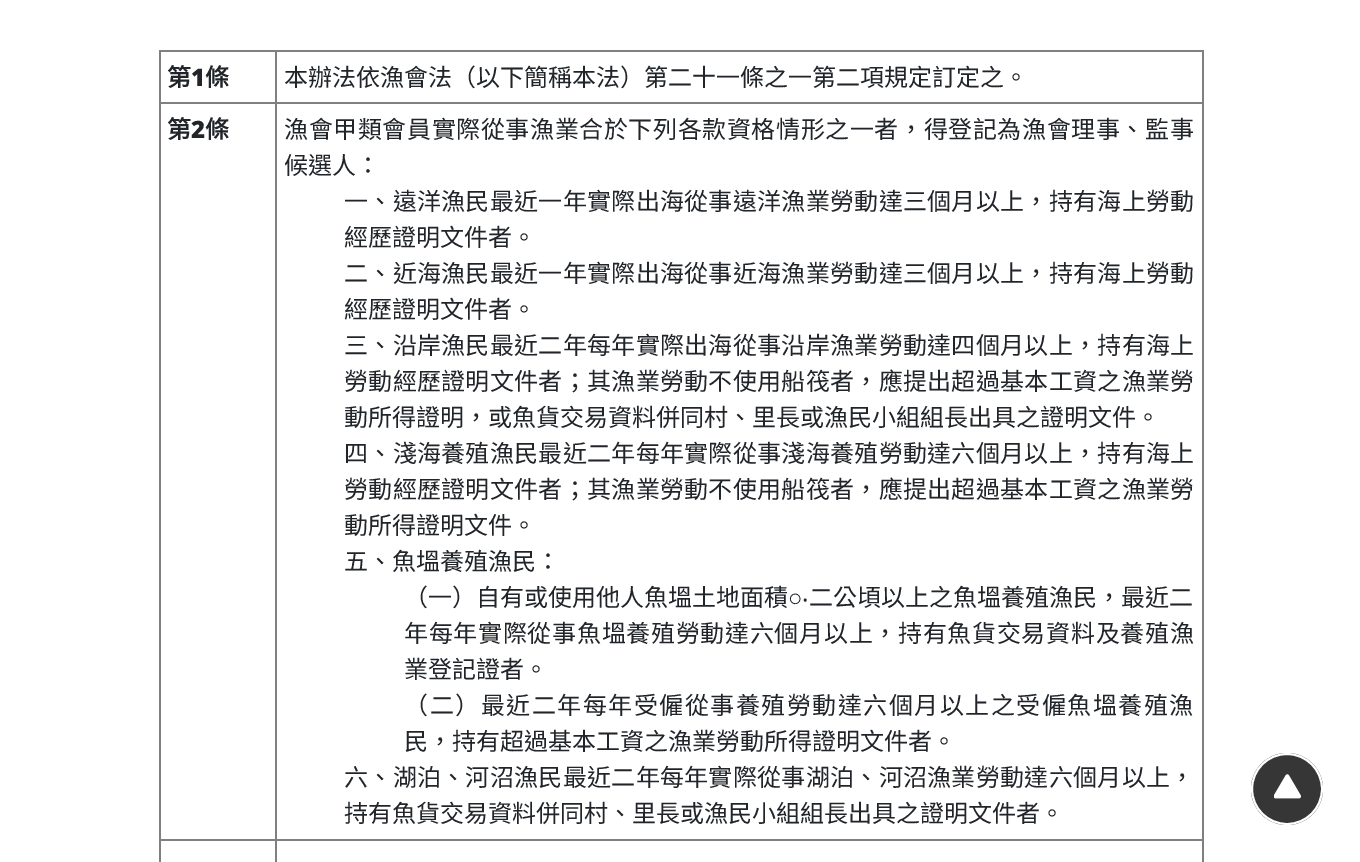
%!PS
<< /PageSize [1360 862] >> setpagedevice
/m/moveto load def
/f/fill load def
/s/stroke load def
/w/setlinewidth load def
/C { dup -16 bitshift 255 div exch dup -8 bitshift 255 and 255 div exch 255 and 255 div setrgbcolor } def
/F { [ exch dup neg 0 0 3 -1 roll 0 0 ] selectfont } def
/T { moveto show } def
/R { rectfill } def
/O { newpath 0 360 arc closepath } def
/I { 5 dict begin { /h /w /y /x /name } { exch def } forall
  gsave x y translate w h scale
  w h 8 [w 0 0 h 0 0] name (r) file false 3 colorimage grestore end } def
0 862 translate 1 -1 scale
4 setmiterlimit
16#FFFFFF C
0 0 1360 862 R
16#808080 C
159 50 1044 2 R
1202 50 2 812 R
159 50 2 812 R
159 839 1044 2 R
159 102 1044 2 R
275 50 2 812 R
/NotoSansCJKTC-Bold 24 F
16#212529 C
(第) 167 86 T
/NotoSans-Black 24 F
(1) 191 86 T
/NotoSansCJKTC-Bold 24 F
(條) 205 86 T
/NotoSansCJKTC-Regular 24 F
(本辦法依漁會法（以下簡稱本法）第二十一條之一第二項規定訂定之。) 284 86 T
/NotoSansCJKTC-Bold 24 F
(第) 167 138 T
/NotoSans-Black 24 F
(2) 191 138 T
/NotoSansCJKTC-Bold 24 F
(條) 205 138 T
/NotoSansCJKTC-Regular 24 F
284 138 m .6 0 (漁會甲類會員實際從事漁業合於下列各款資格情形之一者，得登記為漁會理事、監事) ashow
(候選人：) 284 174 T
344 210 m .3 0 (一、遠洋漁民最近一年實際出海從事遠洋漁業勞動達三個月以上，持有海上勞動) ashow
(經歷證明文件者。) 344 246 T
344 282 m .3 0 (二、近海漁民最近一年實際出海從事近海漁業勞動達三個月以上，持有海上勞動) ashow
(經歷證明文件者。) 344 318 T
344 354 m .3 0 (三、沿岸漁民最近二年每年實際出海從事沿岸漁業勞動達四個月以上，持有海上) ashow
344 390 m .3 0 (勞動經歷證明文件者；其漁業勞動不使用船筏者，應提出超過基本工資之漁業勞) ashow
(動所得證明，或魚貨交易資料併同村、里長或漁民小組組長出具之證明文件。) 344 426 T
344 462 m .3 0 (四、淺海養殖漁民最近二年每年實際從事淺海養殖勞動達六個月以上，持有海上) ashow
344 498 m .3 0 (勞動經歷證明文件者；其漁業勞動不使用船筏者，應提出超過基本工資之漁業勞) ashow
(動所得證明文件。) 344 534 T
(五、魚塭養殖漁民：) 344 570 T
(（一）自有或使用他人魚塭土地面積) 404 606 T
/LiberationSans-Regular 24 F
(○) 788 606 T
/NotoSans-Regular 24 F
(‧) 802 606 T
/NotoSansCJKTC-Regular 24 F
(二公頃以上之魚塭養殖漁民，最近二) 809 606 T
404 642 m .7 0 (年每年實際從事魚塭養殖勞動達六個月以上，持有魚貨交易資料及養殖漁) ashow
(業登記證者。) 404 678 T
404 714 m 1.5 0 (（二）最近二年每年受僱從事養殖勞動達六個月以上之受僱魚塭養殖漁) ashow
(民，持有超過基本工資之漁業勞動所得證明文件者。) 404 750 T
344 786 m .3 0 (六、湖泊、河沼漁民最近二年每年實際從事湖泊、河沼漁業勞動達六個月以上，) ashow
(持有魚貨交易資料併同村、里長或漁民小組組長出具之證明文件者。) 344 822 T
16#363636 C
1287 789 36 O f
(1.rgb) 1274 774 27 25 I
16#FFFFFF C
2 w
1287 789 35 O s
showpage
